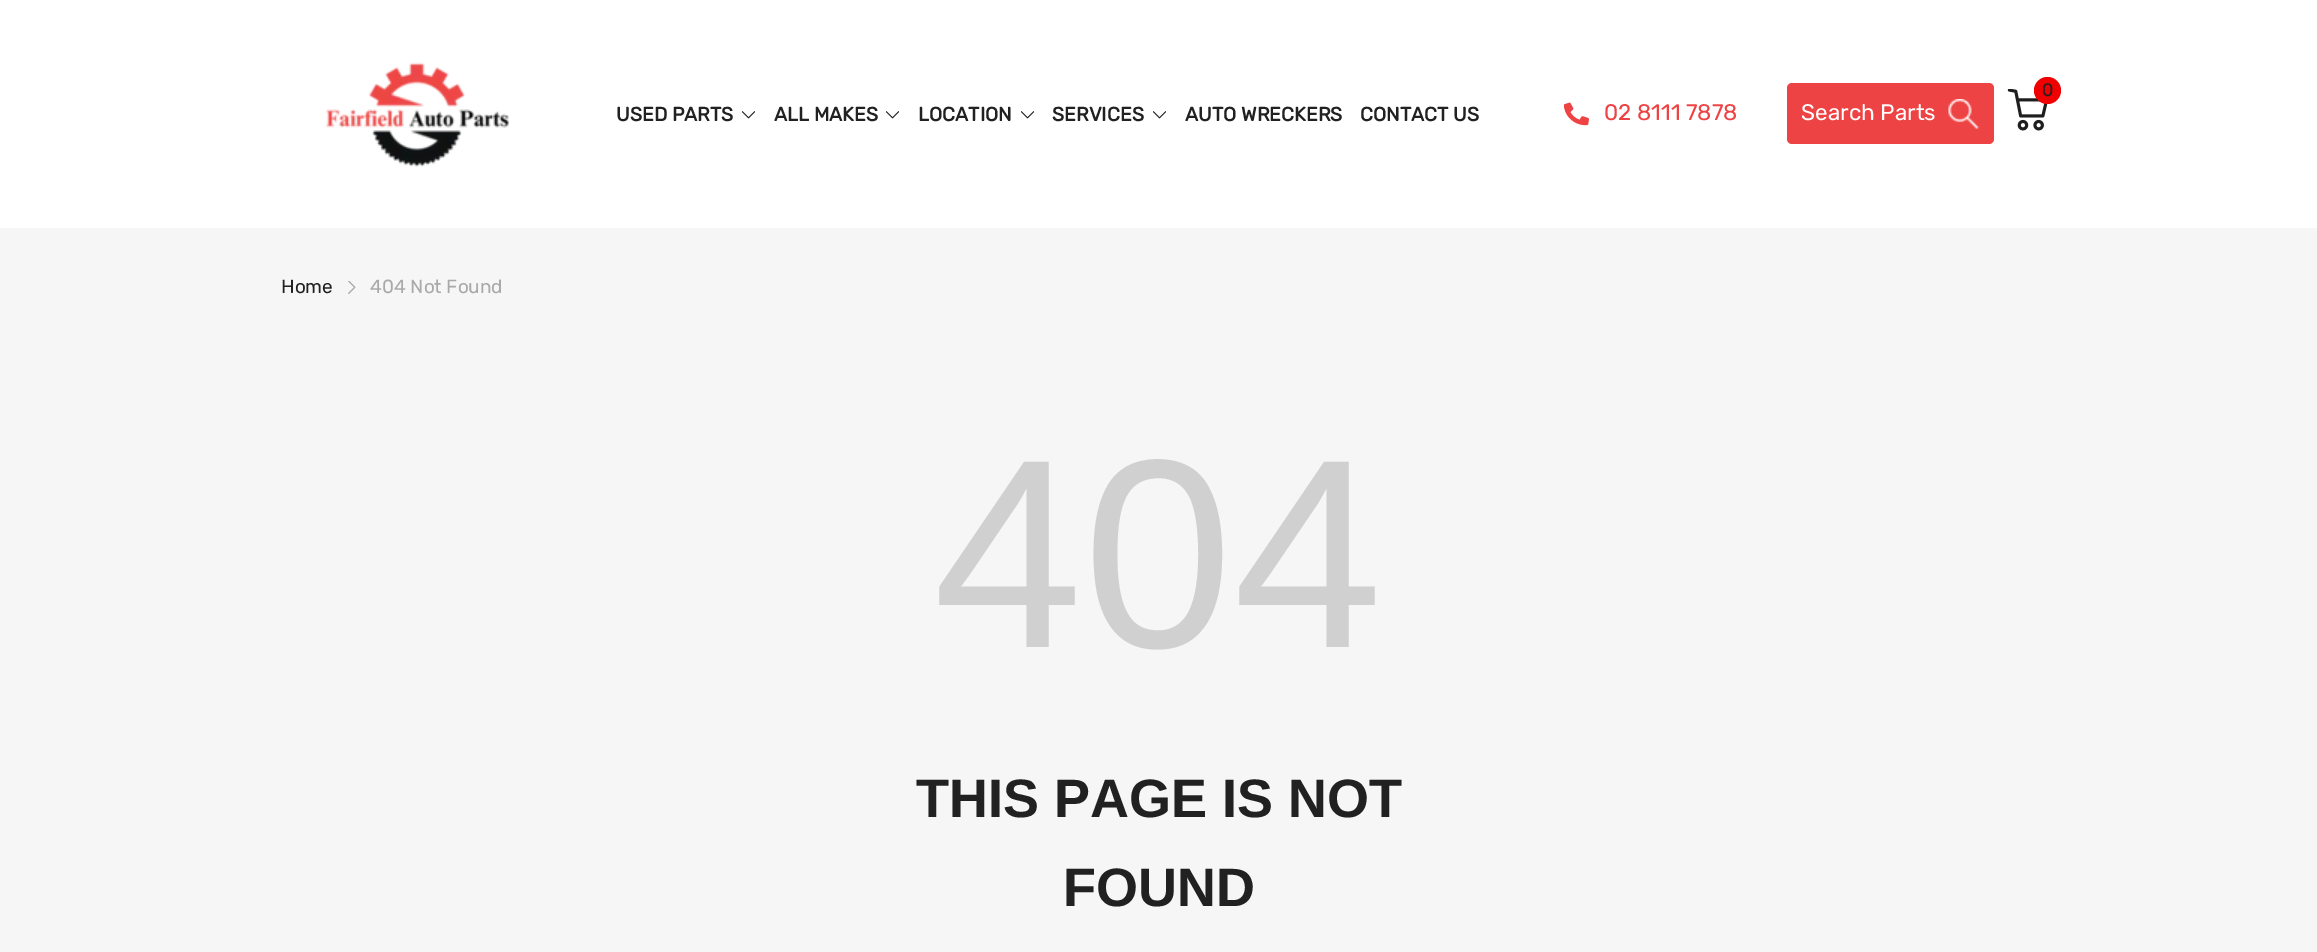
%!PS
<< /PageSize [2317 952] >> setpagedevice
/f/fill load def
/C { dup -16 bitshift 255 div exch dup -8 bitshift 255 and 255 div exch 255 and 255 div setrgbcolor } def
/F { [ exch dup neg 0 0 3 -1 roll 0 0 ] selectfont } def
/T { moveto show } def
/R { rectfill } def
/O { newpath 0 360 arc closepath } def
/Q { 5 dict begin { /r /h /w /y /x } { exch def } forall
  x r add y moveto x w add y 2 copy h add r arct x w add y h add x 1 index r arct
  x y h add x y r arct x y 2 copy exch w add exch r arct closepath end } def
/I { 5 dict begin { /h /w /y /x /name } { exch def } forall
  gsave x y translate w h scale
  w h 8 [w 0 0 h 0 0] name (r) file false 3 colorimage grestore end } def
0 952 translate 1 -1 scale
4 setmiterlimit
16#F6F6F6 C
0 0 2317 952 R
16#FFFFFF C
0 0 2317 228 R
(1.rgb) 325 62 184 105 I
/Rubik-Bold 19.5 F
16#212121 C
(USED PARTS) 616 121 T
(2.rgb) 742 111 13 8 I
(ALL MAKES) 774 121 T
(2.rgb) 886 111 13 8 I
(LOCATION) 918 121 T
(2.rgb) 1021 111 13 8 I
(SERVICES) 1052 121 T
(2.rgb) 1153 111 13 8 I
(AUTO WRECKERS) 1185 121 T
(CONTACT US) 1360 121 T
(3.rgb) 1563 102 26 24 I
/Rubik-Light 22.5 F
16#EE4344 C
(02 8111 7878) 1604 120 T
(4.rgb) 2007 89 41 42 I
16#F00000 C
2047.5 90.5 13.5 O f
/Rubik-Light 18 F
16#212121 C
(0) 2042 96 T
16#EE4344 C
1787 83 207 61 5 Q f
/Rubik-Light 22.5 F
16#FFFFFF C
(Search Parts) 1801 120 T
(5.rgb) 1948 99 31 30 I
/Rubik-Light 19 F
16#212121 C
(Home) 281 293 T
(6.rgb) 348 281 8 13 I
16#A9A9A9 C
(404 Not Found) 370 293 T
/LiberationSans-Regular 270 F
16#D0D0D0 C
(404) 933 647 T
/LiberationSans-Bold 54 F
16#212121 C
(THIS PAGE IS NOT) 916 817 T
(FOUND) 1063 906 T
showpage
